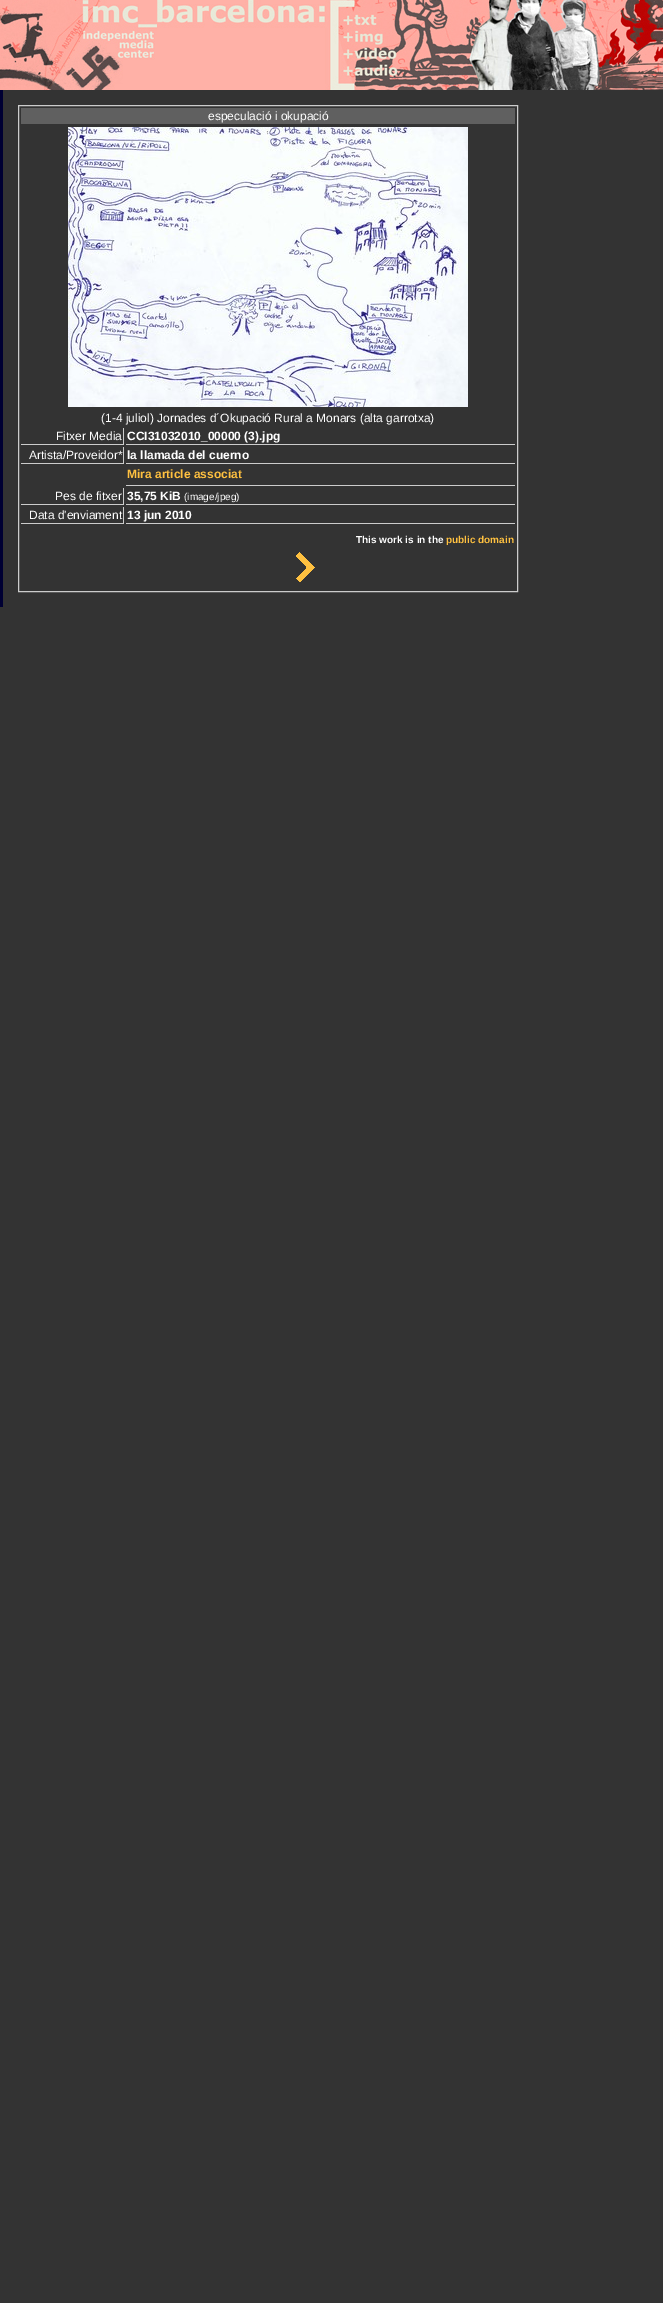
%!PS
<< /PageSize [663 2303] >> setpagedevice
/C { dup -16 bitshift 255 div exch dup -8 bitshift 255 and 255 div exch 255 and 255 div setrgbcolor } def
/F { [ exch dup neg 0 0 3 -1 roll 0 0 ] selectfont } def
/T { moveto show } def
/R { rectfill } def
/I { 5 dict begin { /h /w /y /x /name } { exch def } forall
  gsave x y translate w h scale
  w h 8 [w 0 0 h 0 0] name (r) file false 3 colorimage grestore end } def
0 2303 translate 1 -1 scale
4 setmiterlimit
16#333333 C
0 0 663 2303 R
(1.rgb) 0 0 157 90 I
(2.rgb) 157 0 506 90 I
16#000033 C
0 90 3 517 R
16#CCCCCC C
18.5 105.5 499 486 rectstroke
16#606060 C
21 108 494 16 R
/LiberationSans-Regular 12 F
16#FFFFFF C
(especulació i okupació) 208 120 T
(3.rgb) 68 127 400 280 I
(\(1-4 juliol\) Jornades d´Okupació Rural a Monars \(alta garrotxa\)) 101 422 T
16#CCCCCC C
123 428 1 17 R
21 444 103 1 R
16#FFFFFF C
(Fitxer Media) 56 440 T
16#CCCCCC C
126 444 389 1 R
/LiberationSans-Bold 12 F
16#FFFFFF C
(CCI31032010_00000 \(3\).jpg) 127 440 T
16#CCCCCC C
123 447 1 17 R
21 463 103 1 R
/LiberationSans-Regular 12 F
16#FFFFFF C
(Artista/Proveidor*) 29 459 T
16#CCCCCC C
126 463 389 1 R
/LiberationSans-Bold 12 F
16#FFFFFF C
(la llamada del cuerno) 127 459 T
16#CCCCCC C
126 485 389 1 R
16#FFC140 C
(Mira article associat) 127 478 T
16#CCCCCC C
123 488 1 17 R
21 504 103 1 R
/LiberationSans-Regular 12 F
16#FFFFFF C
(Pes de fitxer) 55 500 T
16#CCCCCC C
126 504 389 1 R
/LiberationSans-Bold 12 F
16#FFFFFF C
(35,75 KiB) 127 500 T
/LiberationSans-Regular 10 F
(\(image/jpeg\)) 184 500 T
16#CCCCCC C
123 507 1 17 R
21 523 103 1 R
/LiberationSans-Regular 12 F
16#FFFFFF C
(Data d'enviament) 29 519 T
16#CCCCCC C
126 523 389 1 R
/LiberationSans-Bold 12 F
16#FFFFFF C
(13 jun 2010) 127 519 T
/LiberationSans-Bold 10 F
(This work is in the) 356 543 T
16#FFC140 C
(public domain) 446 543 T
(4.rgb) 296 552 19 30 I
showpage
